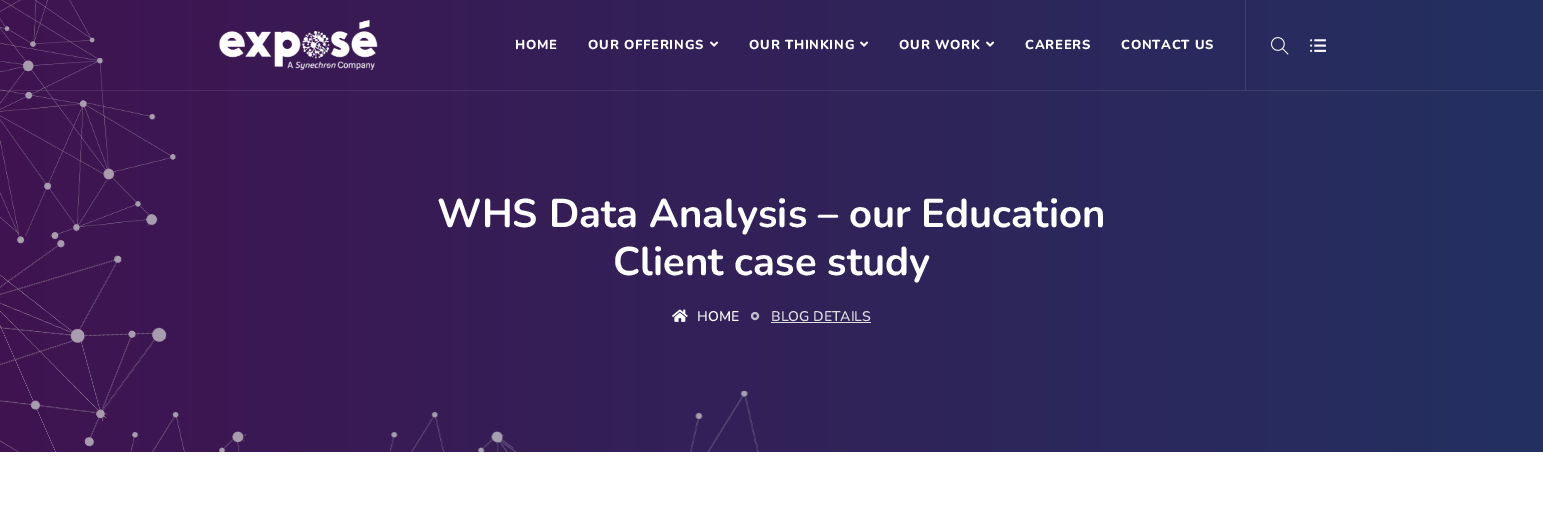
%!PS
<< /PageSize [1543 516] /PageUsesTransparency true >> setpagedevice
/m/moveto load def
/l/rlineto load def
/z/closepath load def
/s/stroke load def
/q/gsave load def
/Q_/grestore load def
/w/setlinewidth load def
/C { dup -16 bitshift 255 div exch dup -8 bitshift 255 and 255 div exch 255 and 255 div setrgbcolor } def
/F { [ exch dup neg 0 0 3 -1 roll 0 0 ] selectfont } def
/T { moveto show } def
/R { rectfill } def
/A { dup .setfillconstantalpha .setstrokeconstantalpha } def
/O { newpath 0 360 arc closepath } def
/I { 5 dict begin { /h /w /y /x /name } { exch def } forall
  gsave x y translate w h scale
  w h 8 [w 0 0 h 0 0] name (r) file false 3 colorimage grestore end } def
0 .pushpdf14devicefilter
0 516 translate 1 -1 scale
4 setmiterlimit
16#FFFFFF C
0 0 1543 516 R
q 0 0 m 1543 0 l 0 452 l -1543 0 l z clip newpath
<< /ShadingType 2 /ColorSpace /DeviceRGB /Coords [0 226 1543 226] /Extend [true true] /Function << /FunctionType 2 /Domain [0 1] /C0 [.247 .075 .314] /C1 [.137 .188 .38] /N 1 >> >> shfill Q_
(7.rgb) 0 0 759 452 I
0.1 A
0 90 1543 1 R
1 A
(1.rgb) 218 20 160 50 I
/Nunito-ExtraBold 13 F
515 49 m .75 0 (HOME) ashow
588 49 m .75 0 (OUR OFFERINGS) ashow
(2.rgb) 710 41 9 6 I
749 49 m .75 0 (OUR THINKING) ashow
(3.rgb) 860 41 9 6 I
899 49 m .75 0 (OUR WORK) ashow
(4.rgb) 986 41 9 6 I
1025 49 m .75 0 (CAREERS) ashow
1121 49 m .75 0 (CONTACT US) ashow
16#3E3F6E C
1245 0 1 90 R
(5.rgb) 1271 37 18 18 I
(6.rgb) 1310 39 16 13 I
/Nunito-Bold 40 F
16#FFFFFF C
(WHS Data Analysis – our Education) 437 227 T
(Client case study) 613 275 T
(8.rgb) 672 309 16 13 I
/Nunito-SemiBold 14 F
(HOME) 697 321 T
16#C1BCCD C
2 w
755 316 3 O s
16#DDDDDD C
(BLOG DETAILS) 771 321 T
771 322 100 1 R
.poppdf14devicefilter showpage
